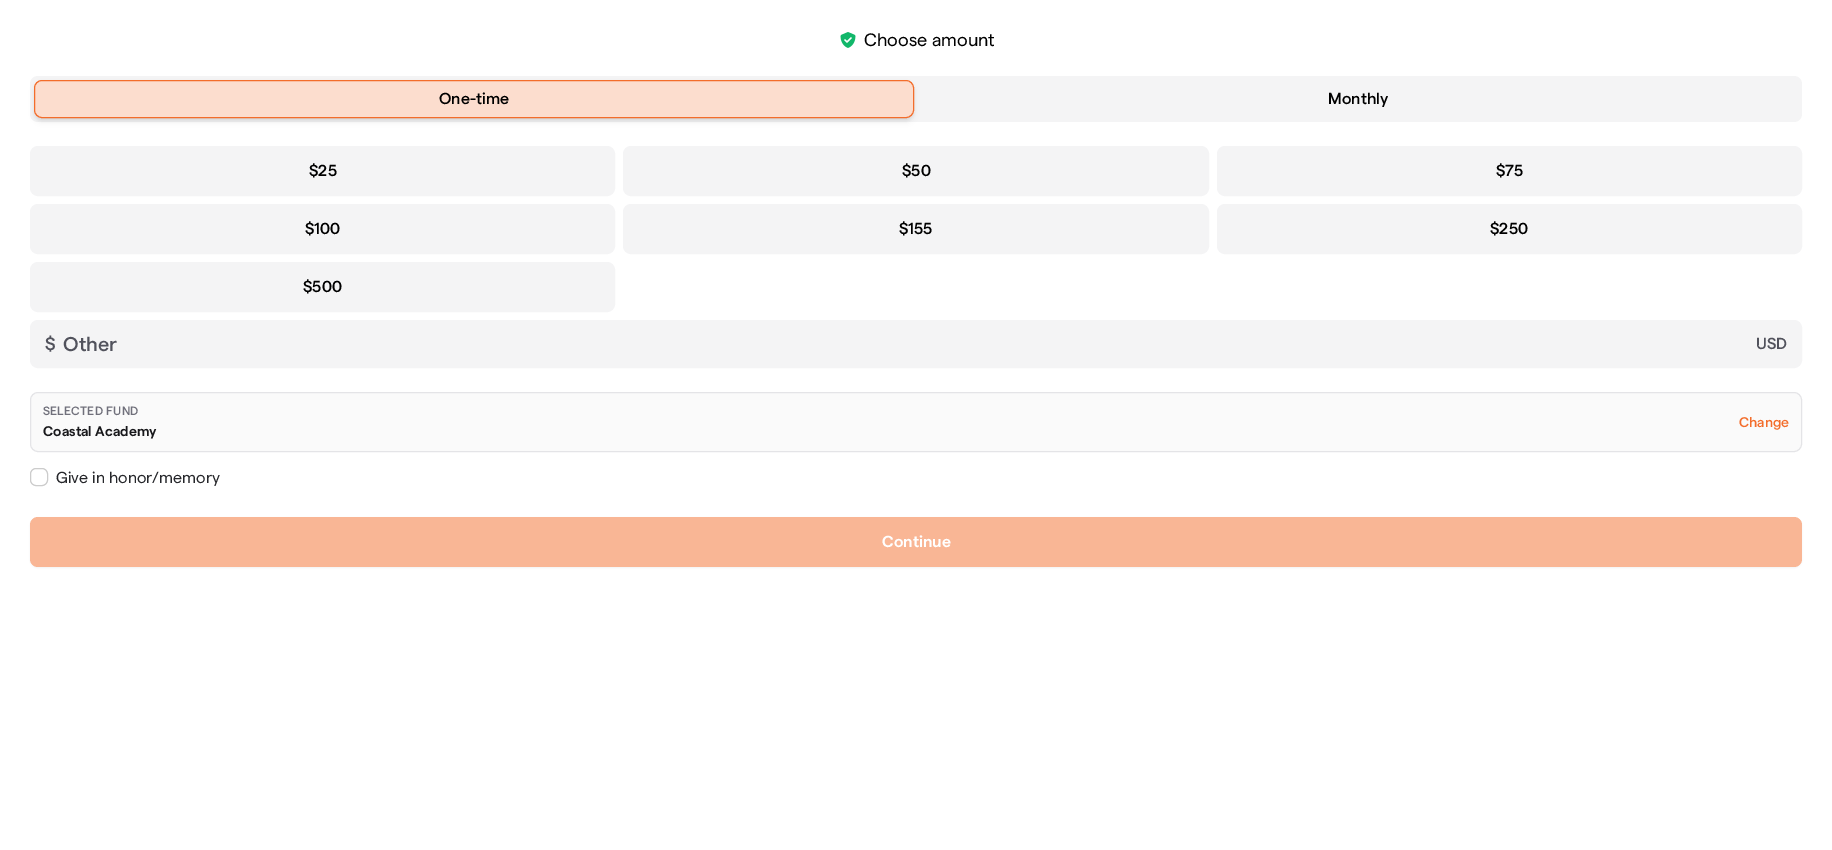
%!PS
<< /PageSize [1832 850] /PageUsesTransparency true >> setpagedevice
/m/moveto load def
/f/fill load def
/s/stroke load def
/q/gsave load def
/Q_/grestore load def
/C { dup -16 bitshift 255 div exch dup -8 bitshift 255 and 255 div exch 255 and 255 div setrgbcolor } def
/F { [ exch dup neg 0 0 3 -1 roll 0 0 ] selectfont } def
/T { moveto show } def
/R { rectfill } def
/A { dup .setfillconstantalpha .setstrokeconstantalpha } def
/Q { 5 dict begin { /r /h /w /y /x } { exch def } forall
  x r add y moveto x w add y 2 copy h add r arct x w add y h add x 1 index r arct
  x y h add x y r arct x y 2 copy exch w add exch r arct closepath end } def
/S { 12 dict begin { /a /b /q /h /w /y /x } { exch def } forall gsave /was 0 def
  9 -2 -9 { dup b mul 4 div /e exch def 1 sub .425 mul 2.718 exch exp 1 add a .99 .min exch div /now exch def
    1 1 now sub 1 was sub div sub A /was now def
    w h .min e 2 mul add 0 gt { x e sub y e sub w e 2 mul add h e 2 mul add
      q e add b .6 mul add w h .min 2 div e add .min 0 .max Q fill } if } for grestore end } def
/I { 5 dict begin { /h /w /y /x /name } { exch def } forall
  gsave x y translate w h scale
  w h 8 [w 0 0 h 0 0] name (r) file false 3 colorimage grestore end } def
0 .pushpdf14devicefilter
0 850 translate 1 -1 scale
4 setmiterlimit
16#FFFFFF C
0 0 1832 850 R
(1.rgb) 840 32 16 16 I
/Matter-Regular 18 F
16#000000 C
(Choose amount) 864 46 T
16#F4F4F5 C
30 76 1772 46 8 Q f
16#000000 C
36 84 876 34 6 2 .1 S
35 85 878 36 7 3 .1 S
16#FCDDCE C
34.5 80.5 879 37 7.5 Q q f Q_
16#F36D2B C
s
/Matter-Medium 16 F
16#000000 C
(One-time) 439 104 T
(Monthly) 1328 104 T
16#F4F4F5 C
30.5 146.5 584 49 7.5 Q q f Q_
s
16#000000 C
($25) 309 176 T
16#F4F4F5 C
623.5 146.5 585 49 7.5 Q q f Q_
s
16#000000 C
($50) 902 176 T
16#F4F4F5 C
1217.5 146.5 584 49 7.5 Q q f Q_
s
16#000000 C
($75) 1496 176 T
16#F4F4F5 C
30.5 204.5 584 49 7.5 Q q f Q_
s
16#000000 C
($100) 305 234 T
16#F4F4F5 C
623.5 204.5 585 49 7.5 Q q f Q_
s
16#000000 C
($155) 899 234 T
16#F4F4F5 C
1217.5 204.5 584 49 7.5 Q q f Q_
s
16#000000 C
($250) 1490 234 T
16#F4F4F5 C
30.5 262.5 584 49 7.5 Q q f Q_
s
16#000000 C
($500) 303 292 T
16#F4F4F5 C
30.5 320.5 1771 47 7.5 Q q f Q_
s
/Matter-Medium 18 F
16#51525C C
($) 45 350 T
/Matter-Medium 20 F
(Other) 63 351 T
/Matter-Medium 16 F
(USD) 1756 349 T
16#FAFAFA C
30.5 392.5 1771 59 7.5 Q q f Q_
16#E4E4E7 C
s
/Matter-Medium 12 F
16#70707B C
43 415 m .25 0 (SELECTED FUND) ashow
/Matter-SemiBold 14 F
16#18181B C
(Coastal Academy) 43 436 T
/Matter-Medium 14 F
16#F36D2B C
(Change) 1739 427 T
16#CCCCCC C
30.5 468.5 17 17 5.5 Q s
/Matter-Regular 16 F
16#26272B C
(Give in honor/memory) 56 483 T
16#808080 C
31 519 1770 48 7 1 .1 S
30 518 1772 50 8 1.5 .1 S
16#F9B695 C
30 517 1772 50 8 Q f
/Matter-SemiBold 16 F
16#FFFFFF C
(Continue) 882 547 T
.poppdf14devicefilter showpage
